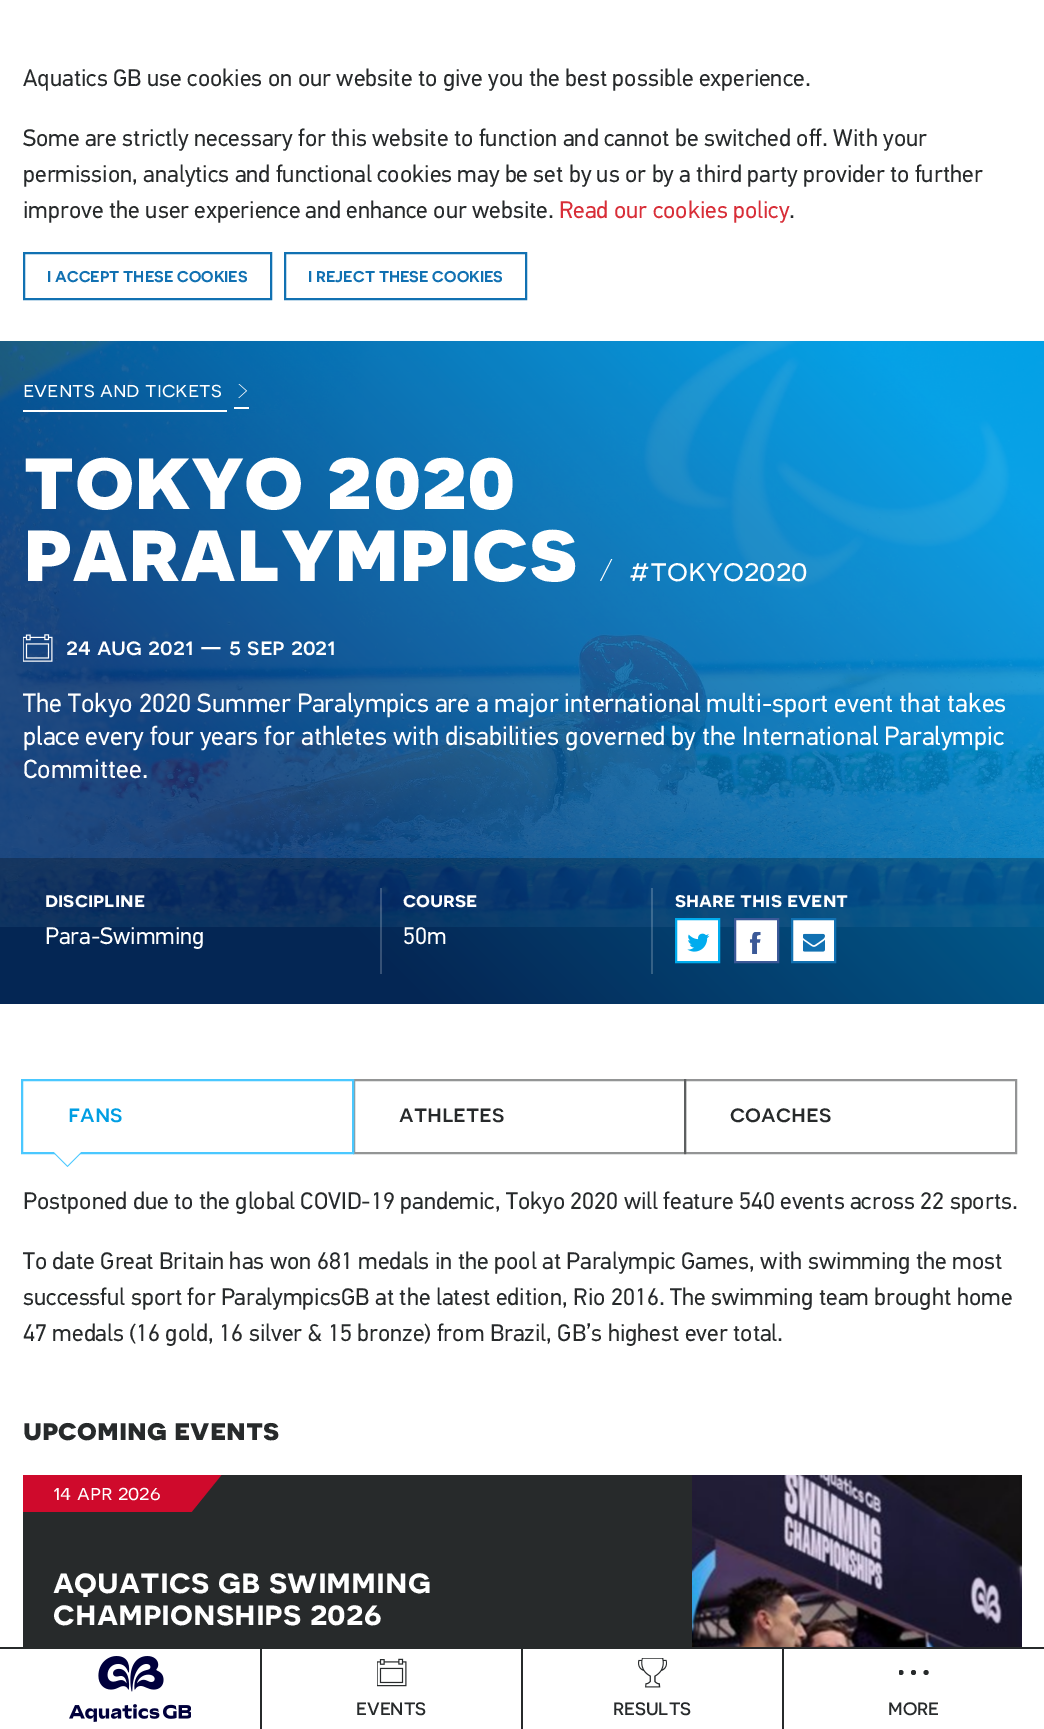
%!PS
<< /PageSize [1044 1729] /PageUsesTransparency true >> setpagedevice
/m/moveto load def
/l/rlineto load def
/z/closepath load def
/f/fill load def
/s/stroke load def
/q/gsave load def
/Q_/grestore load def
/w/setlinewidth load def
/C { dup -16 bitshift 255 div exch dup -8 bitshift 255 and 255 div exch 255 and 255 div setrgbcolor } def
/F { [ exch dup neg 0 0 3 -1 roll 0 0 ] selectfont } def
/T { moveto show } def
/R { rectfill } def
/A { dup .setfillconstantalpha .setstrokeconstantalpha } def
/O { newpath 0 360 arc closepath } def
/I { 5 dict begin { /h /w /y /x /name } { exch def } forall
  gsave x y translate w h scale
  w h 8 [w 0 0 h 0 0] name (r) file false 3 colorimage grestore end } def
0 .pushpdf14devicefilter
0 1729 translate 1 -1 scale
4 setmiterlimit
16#FFFFFF C
0 0 1044 1729 R
/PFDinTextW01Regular-Regular 24 F
16#272A2B C
(Aquatics GB use cookies on our website to give you the best possible experience.) 23 86 T
(Some are strictly necessary for this website to function and cannot be switched off. With your) 23 146 T
(permission, analytics and functional cookies may be set by us or by a third party provider to further) 23 182 T
(improve the user experience and enhance our website.) 23 218 T
16#D82E38 C
(Read our cookies policy) 559 218 T
16#272A2B C
(.) 789 218 T
16#1171B2 C
2 w
24 253 247 46 rectstroke
/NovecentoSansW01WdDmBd-SemiBold 15.6 F
(I ACCEPT THESE COOKIES) 47 282 T
285 253 241 46 rectstroke
(I REJECT THESE COOKIES) 308 282 T
q 0 341 m 1044 0 l 0 663 l -1044 0 l z clip newpath
<< /ShadingType 2 /ColorSpace /DeviceRGB /Coords [95 1099 949 245] /Extend [true true] /Function << /FunctionType 3 /Domain [0 1] /Functions [<< /FunctionType 2 /Domain [0 1] /C0 [.024 .2 .439] /C1 [.024 .2 .439] /N 1 >> << /FunctionType 2 /Domain [0 1] /C0 [.024 .2 .439] /C1 [0 .62 .89] /N 1 >> << /FunctionType 2 /Domain [0 1] /C0 [0 .62 .89] /C1 [0 .62 .89] /N 1 >>] /Bounds [.25 .9] /Encode [0 1 0 1 0 1] >> >> shfill Q_
(1.rgb) 0 340 1044 587 I
/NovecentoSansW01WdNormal-Regular 21.5 F
16#FFFFFF C
(events and tickets) 23 397 T
23 410 204 2 R
234 407 15 2 R
(2.rgb) 238 384 10 14 I
/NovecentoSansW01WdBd-Bold 90 F
(tokyo 2020) 23 509 T
(paralympics) 23 581 T
/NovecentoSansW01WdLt-Light 31.5 F
(/) 599 581 T
/NovecentoSansW01WdNormal-Regular 31.5 F
(#tokyo2020) 629 581 T
(3.rgb) 23 634 30 28 I
/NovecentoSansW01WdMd-Medium 24 F
(24 aug 2021 — 5 sep 2021) 66 655 T
/PFDinTextW01Regular-Regular 26.4 F
(The Tokyo 2020 Summer Paralympics are a major international multi-sport event that takes) 23 712 T
(place every four years for athletes with disabilities governed by the International Paralympic) 23 745 T
(Committee.) 23 778 T
0.25 A
16#000000 C
0 858 1044 146 R
0.2 A
16#FFFFFF C
380 888 2 86 R
/NovecentoSansW01WdDmBd-SemiBold 21 F
1 A
(discipline) 45 907 T
/PFDinTextW01Regular-Regular 24 F
(Para-Swimming) 45 944 T
0.2 A
651 888 2 86 R
/NovecentoSansW01WdDmBd-SemiBold 21 F
1 A
(course) 403 907 T
/PFDinTextW01Regular-Regular 24 F
(50m) 403 944 T
/NovecentoSansW01WdDmBd-SemiBold 21 F
(share this event) 675 907 T
676 919 m 43 0 l 0 43 l -43 0 l z q f Q_
16#00ACEE C
s
(4.rgb) 687 933 23 19 I
16#FFFFFF C
735 919 m 43 0 l 0 43 l -43 0 l z q f Q_
16#3B5998 C
s
(5.rgb) 749 932 12 22 I
16#FFFFFF C
792 919 m 43 0 l 0 43 l -43 0 l z q f Q_
16#1171B2 C
s
(6.rgb) 803 933 22 19 I
16#939595 C
354 1080 331 73 rectstroke
16#4AC8FF C
22 1080 331 73 rectstroke
/NovecentoSansW01WdMd-Medium 24 F
16#009EE3 C
(fans) 68 1122 T
16#4AC8FF C
52.5 1152 m 30 0 l -15 15 l z f
16#FFFFFF C
52.5 1150.5 m 30 0 l -15 15 l z f
16#272A2B C
(athletes) 399 1122 T
0.5 A
685 1080 331 73 rectstroke
1 A
(coaches) 730 1122 T
/PFDinTextW01Regular-Regular 24 F
(Postponed due to the global COVID-19 pandemic, Tokyo 2020 will feature 540 events across 22 sports.) 23 1209 T
(To date Great Britain has won 681 medals in the pool at Paralympic Games, with swimming the most) 23 1269 T
(successful sport for ParalympicsGB at the latest edition, Rio 2016. The swimming team brought home) 23 1305 T
(47 medals \(16 gold, 16 silver & 15 bronze\) from Brazil, GB’s highest ever total.) 23 1341 T
/NovecentoSansW01WdBd-Bold 30 F
(upcoming events) 23 1440 T
23 1475 669 172 R
16#CF0A2C C
23 1475 154 37 R
/NovecentoSansW01WdNormal-Regular 21.5 F
16#FFFFFF C
(14 apr 2026) 53 1500 T
q
23 1475 199 37 rectclip
16#CF0A2C C
177 1475 m 75 -93 l 0 55 l -75 93 l z f
Q_
(7.rgb) 692 1475 330 172 I
/NovecentoSansW01WdDmBd-SemiBold 34.75 F
(aquatics gb swimming) 53 1593 T
(championships 2026) 53 1625 T
16#272A2B C
0 1647 1044 2 R
260 1649 2 80 R
(8.rgb) 69 1656 122 66 I
521 1649 2 80 R
(9.rgb) 377 1658 30 29 I
/NovecentoSansW01WdMd-Medium 18 F
(EVENTS) 356 1715 T
782 1649 2 80 R
(10.rgb) 638 1658 29 30 I
(RESULTS) 613 1715 T
q
899 1658 30 30 rectclip
901 1672.5 2.5 O f
Q_
913.5 1672.5 2.5 O f
926.1 1672.5 2.5 O f
(MORE) 888 1715 T
.poppdf14devicefilter showpage
